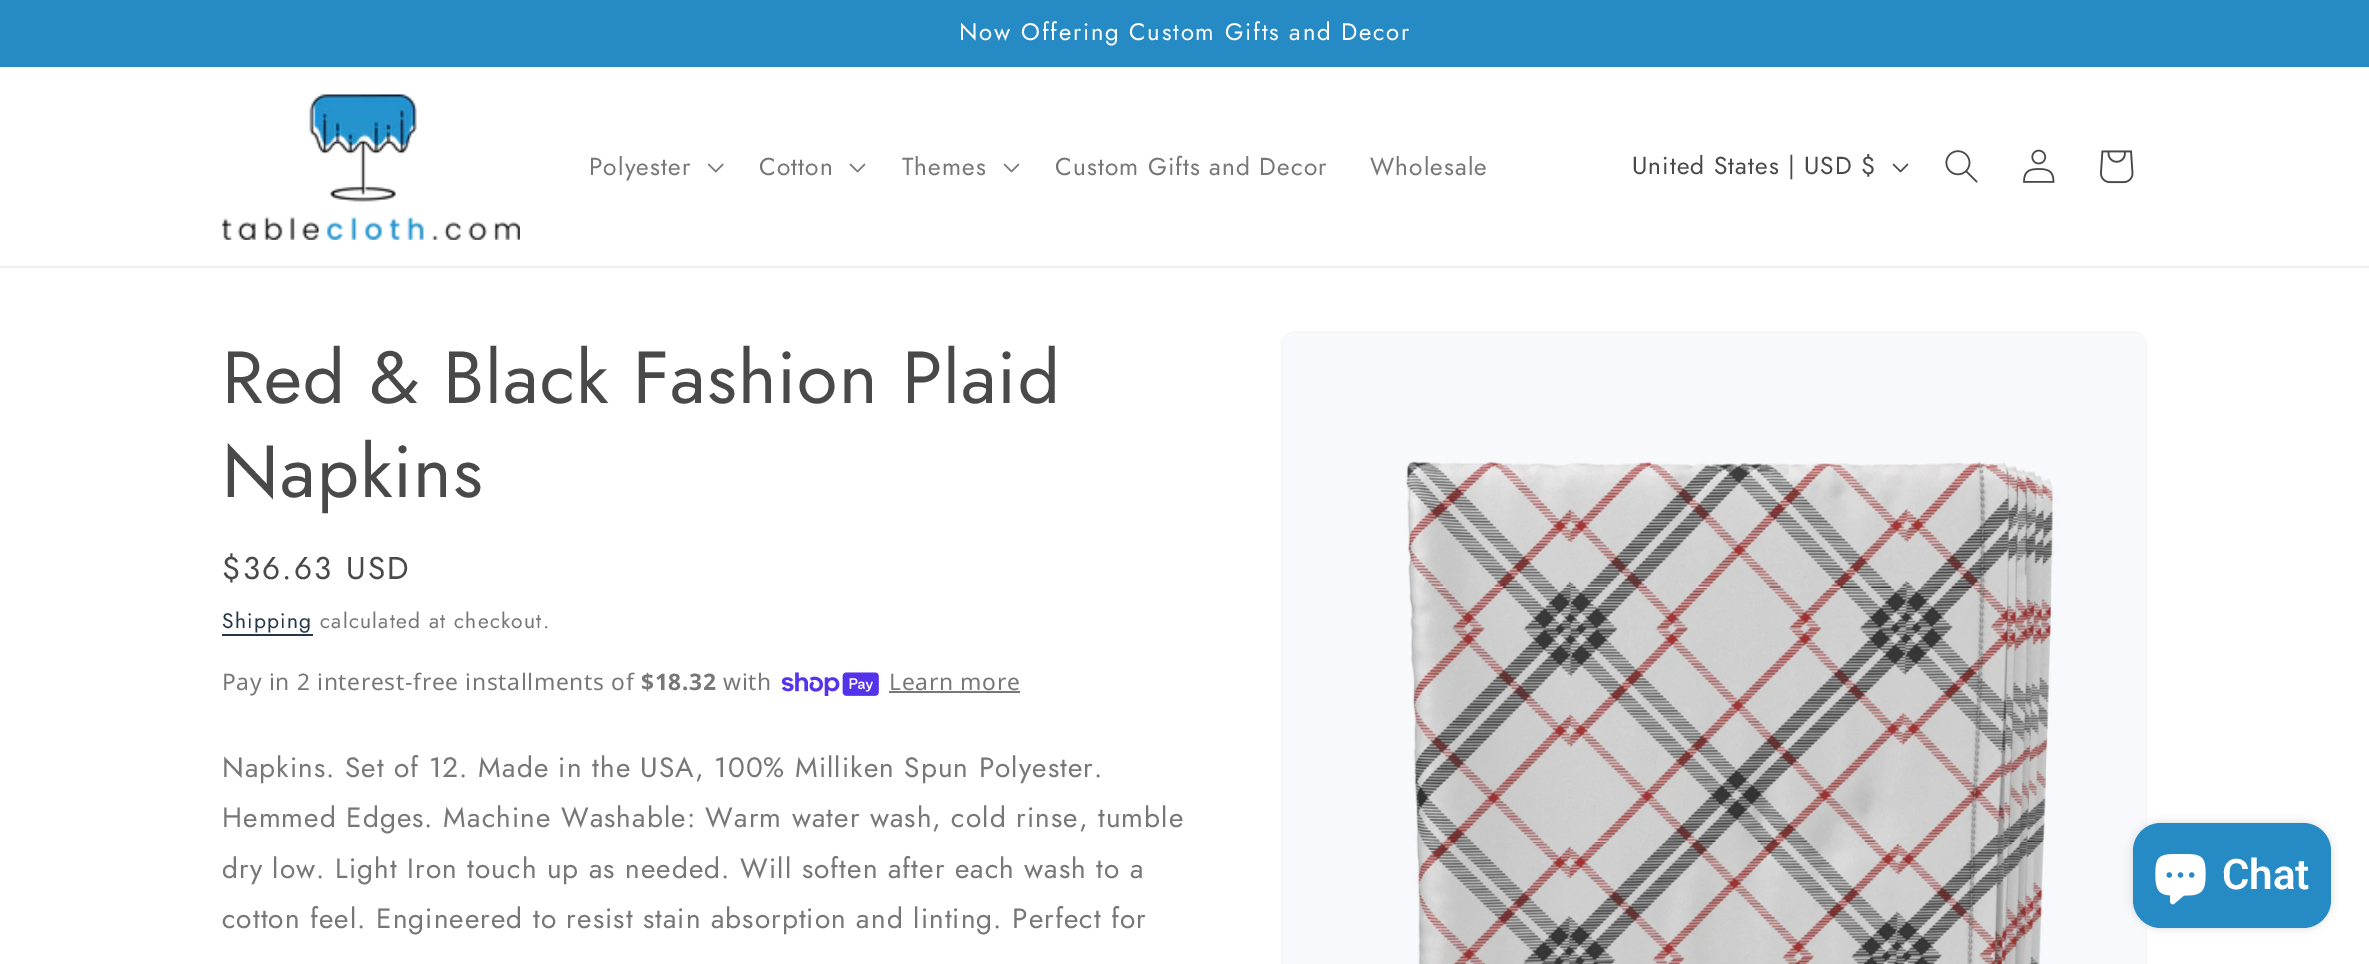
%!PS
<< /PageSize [2369 964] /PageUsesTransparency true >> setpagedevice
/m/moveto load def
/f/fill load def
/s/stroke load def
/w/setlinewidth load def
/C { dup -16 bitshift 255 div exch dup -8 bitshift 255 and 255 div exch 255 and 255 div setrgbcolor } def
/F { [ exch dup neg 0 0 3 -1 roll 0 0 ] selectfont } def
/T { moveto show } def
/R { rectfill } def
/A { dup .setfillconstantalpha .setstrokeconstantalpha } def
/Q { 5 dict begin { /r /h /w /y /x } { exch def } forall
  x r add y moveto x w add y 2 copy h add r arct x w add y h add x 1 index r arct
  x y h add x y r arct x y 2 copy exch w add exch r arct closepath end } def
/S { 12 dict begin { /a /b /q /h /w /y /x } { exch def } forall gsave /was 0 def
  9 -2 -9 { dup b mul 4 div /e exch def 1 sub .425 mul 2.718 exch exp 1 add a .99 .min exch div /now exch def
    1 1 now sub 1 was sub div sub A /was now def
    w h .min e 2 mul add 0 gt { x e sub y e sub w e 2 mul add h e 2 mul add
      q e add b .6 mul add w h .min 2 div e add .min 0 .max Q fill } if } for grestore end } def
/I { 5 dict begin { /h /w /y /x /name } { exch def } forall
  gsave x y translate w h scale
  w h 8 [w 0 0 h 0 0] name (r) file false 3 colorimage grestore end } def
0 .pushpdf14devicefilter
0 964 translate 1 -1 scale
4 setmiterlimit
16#FFFFFF C
0 0 2369 964 R
16#268AC4 C
0 0 2369 67 R
/Jost-Regular 23.9 F
16#FFFFFF C
959 40 m 1.75 0 (Now Offering Custom Gifts and Decor) ashow
16#F0F0F0 C
0 266 2369 2 R
(1.rgb) 222 94 298 146 I
/Jost-Regular 24.5 F
16#777777 C
589 175 m 1.05 0 (Polyester) ashow
(2.rgb) 707 163 17 10 I
759 175 m 1.05 0 (Cotton) ashow
(3.rgb) 849 163 17 10 I
902 175 m 1.05 0 (Themes) ashow
(3.rgb) 1003 163 17 10 I
1055 175 m 1.05 0 (Custom Gifts and Decor) ashow
1370 175 m 1.05 0 (Wholesale) ashow
16#494949 C
1632 174 m 1.05 0 (United States | USD $) ashow
(4.rgb) 1892 163 17 10 I
(5.rgb) 1945 150 33 33 I
(6.rgb) 2023 149 32 34 I
(7.rgb) 2100 150 34 34 I
/Jost-Regular 73.5 F
222 403 m 1.1 0 (Red & Black Fashion Plaid) ashow
222 497 m 1.1 0 (Napkins) ashow
/Jost-Regular 31.5 F
222 579 m 2.25 0 ($36.63 USD) ashow
/Jost-Regular 21 F
16#263548 C
222 628 m 1.25 0 (Shipping) ashow
222 634 91 2 R
16#777777 C
320 628 m 1.25 0 (calculated at checkout.) ashow
/NotoSans-Regular 22.75 F
222 690 m .7 0 (Pay in 2 interest-free installments of) ashow
/NotoSans-Bold 22.75 F
641 690 m .7 0 ($18.32) ashow
/NotoSans-Regular 22.75 F
723 690 m .7 0 (with) ashow
(8.rgb) 781 672 98 24 I
889 690 m .7 0 (Learn more) ashow
889 691 131 2 R
/Jost-Regular 28 F
222 777 m 1.05 0 (Napkins. Set of 12. Made in the USA, 100% Milliken Spun Polyester.) ashow
222 827 m 1.05 0 (Hemmed Edges. Machine Washable: Warm water wash, cold rinse, tumble) ashow
222 878 m 1.05 0 (dry low. Light Iron touch up as needed. Will soften after each wash to a) ashow
222 928 m 1.05 0 (cotton feel. Engineered to resist stain absorption and linting. Perfect for) ashow
16#F6F6F6 C
2 w
1282 332 864 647 13 Q s
(9.rgb) 1283 333 863 631 I
16#000000 C
2133 823 198 105 28 4.5 .15 S
16#268AC4 C
2133 823 198 105 28 Q f
(10.rgb) 2155 854 51 51 I
/Roboto-SemiBold 42 F
16#FFFFFF C
(Chat) 2222 889 T
.poppdf14devicefilter showpage
